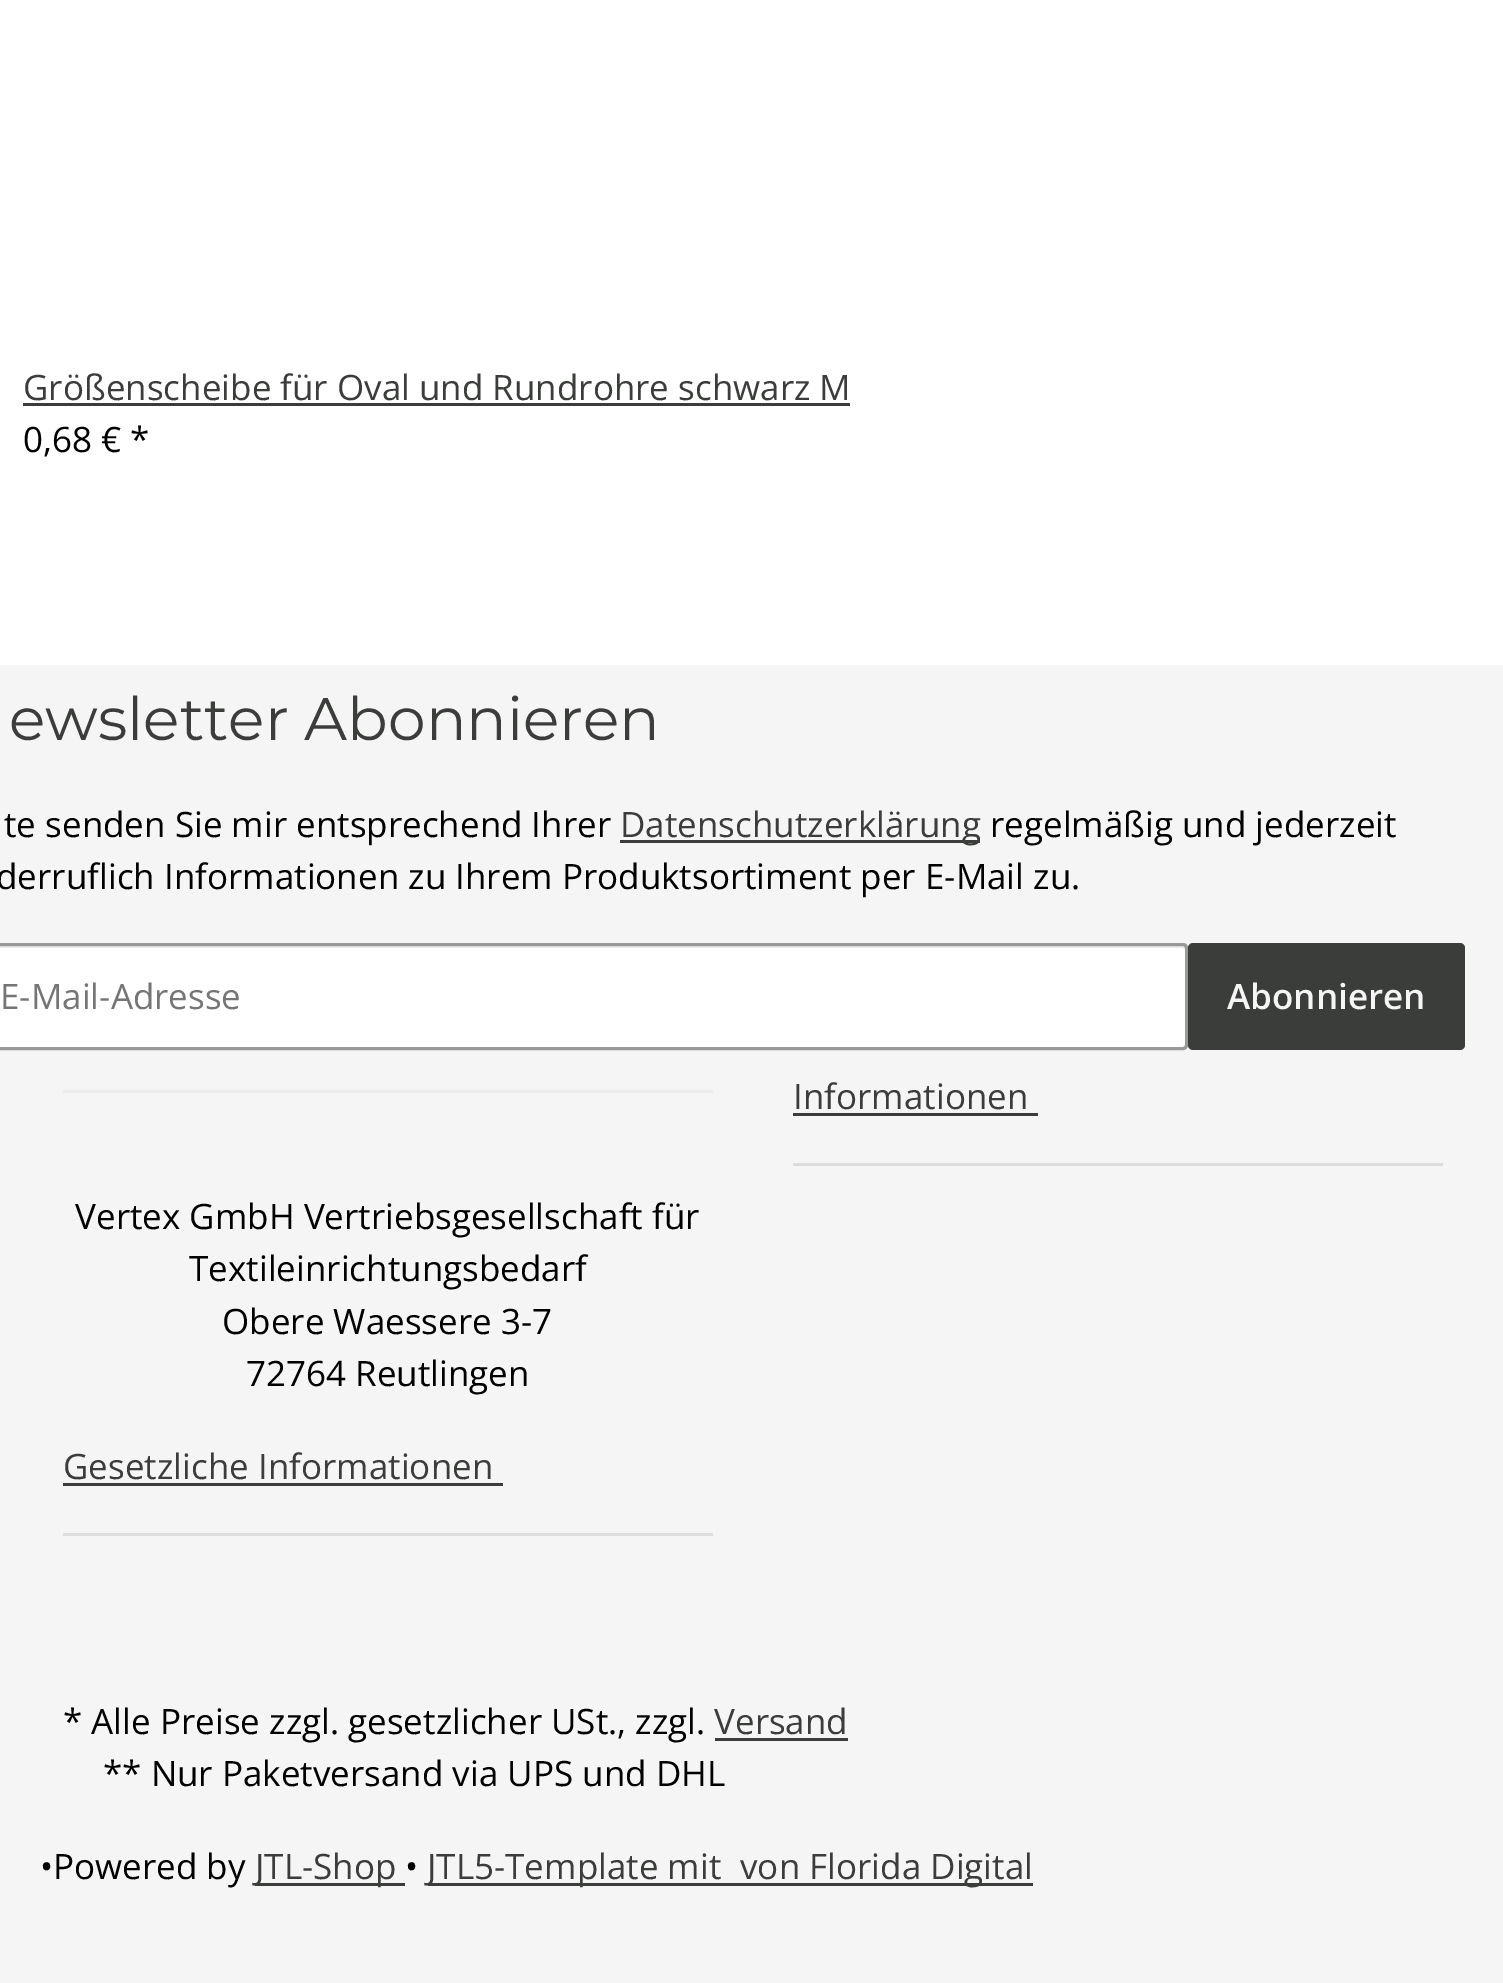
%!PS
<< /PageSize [1503 1983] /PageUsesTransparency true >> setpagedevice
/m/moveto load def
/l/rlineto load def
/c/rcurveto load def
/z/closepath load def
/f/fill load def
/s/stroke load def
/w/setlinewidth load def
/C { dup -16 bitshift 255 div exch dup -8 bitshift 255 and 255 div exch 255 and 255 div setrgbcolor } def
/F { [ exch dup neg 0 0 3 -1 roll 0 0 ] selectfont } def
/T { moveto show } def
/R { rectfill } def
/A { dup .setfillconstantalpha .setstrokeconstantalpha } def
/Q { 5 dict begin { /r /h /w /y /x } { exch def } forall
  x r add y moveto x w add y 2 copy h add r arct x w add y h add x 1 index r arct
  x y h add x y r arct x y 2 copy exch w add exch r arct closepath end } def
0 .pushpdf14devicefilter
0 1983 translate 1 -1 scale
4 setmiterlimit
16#F5F5F5 C
0 0 1503 1983 R
16#FFFFFF C
0 0 1503 665 R
/OpenSans-Regular 35 F
16#3B3D3B C
(Größenscheibe für Oval und Rundrohre schwarz M) 23 400 T
23 403 827 3 R
16#000000 C
(0,68 € *) 23 452 T
/Montserrat-Regular 60 F
16#3B3D3B C
(ewsletter Abonnieren) 9 740 T
/OpenSans-Regular 35 F
16#000000 C
(te senden Sie mir entsprechend Ihrer) 4 837 T
16#3B3D3B C
620 840 360 3 R
(Datenschutzerklärung) 620 837 T
16#000000 C
(regelmäßig und jederzeit) 990 837 T
(derruflich Informationen zu Ihrem Produktsortiment per E-Mail zu.) -4 889 T
16#FFFFFF C
-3 945 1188 103 2.5 Q f
0.07 A
16#000000 C
-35 948 m 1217 0 l 2 0 3 1 3 2 c 0 -2 l 0 -2 -1 -3 -3 -3 c -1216 0 l -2 0 -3 1 -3 3 c 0 1 l z f
1 A
16#999999 C
3 w
-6.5 944.5 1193 104 3.5 Q s
16#757575 C
(E-Mail-Adresse) 0 1009 T
16#3B3D3B C
1188 943 277 107 5 Q f
/OpenSans-SemiBold 35 F
16#F5F5F5 C
(Abonnieren) 1227 1009 T
/OpenSans-Regular 35 F
16#3B3D3B C
(Informationen) 793 1109 T
793 1113 245 3 R
16#DDDDDD C
793 1163 650 3 R
16#EBEBEB C
63 1090 650 3 R
16#000000 C
(Vertex GmbH Vertriebsgesellschaft für) 75 1229 T
(Textileinrichtungsbedarf) 189 1281 T
(Obere Waessere 3-7) 222 1334 T
(72764 Reutlingen) 246 1386 T
16#3B3D3B C
(Gesetzliche Informationen) 63 1479 T
63 1483 440 3 R
16#DDDDDD C
63 1533 650 3 R
16#000000 C
(* Alle Preise zzgl. gesetzlicher USt., zzgl.) 63 1734 T
16#3B3D3B C
(Versand) 714 1734 T
715 1738 133 3 R
16#000000 C
(** Nur Paketversand via UPS und DHL) 103 1786 T
(•Powered by) 40 1879 T
16#3B3D3B C
255 1883 150 3 R
(JTL-Shop) 255 1879 T
16#000000 C
(•) 405 1879 T
16#3B3D3B C
428 1883 605 3 R
(JTL5-Template mit) 427 1879 T
(von Florida Digital) 740 1879 T
.poppdf14devicefilter showpage
